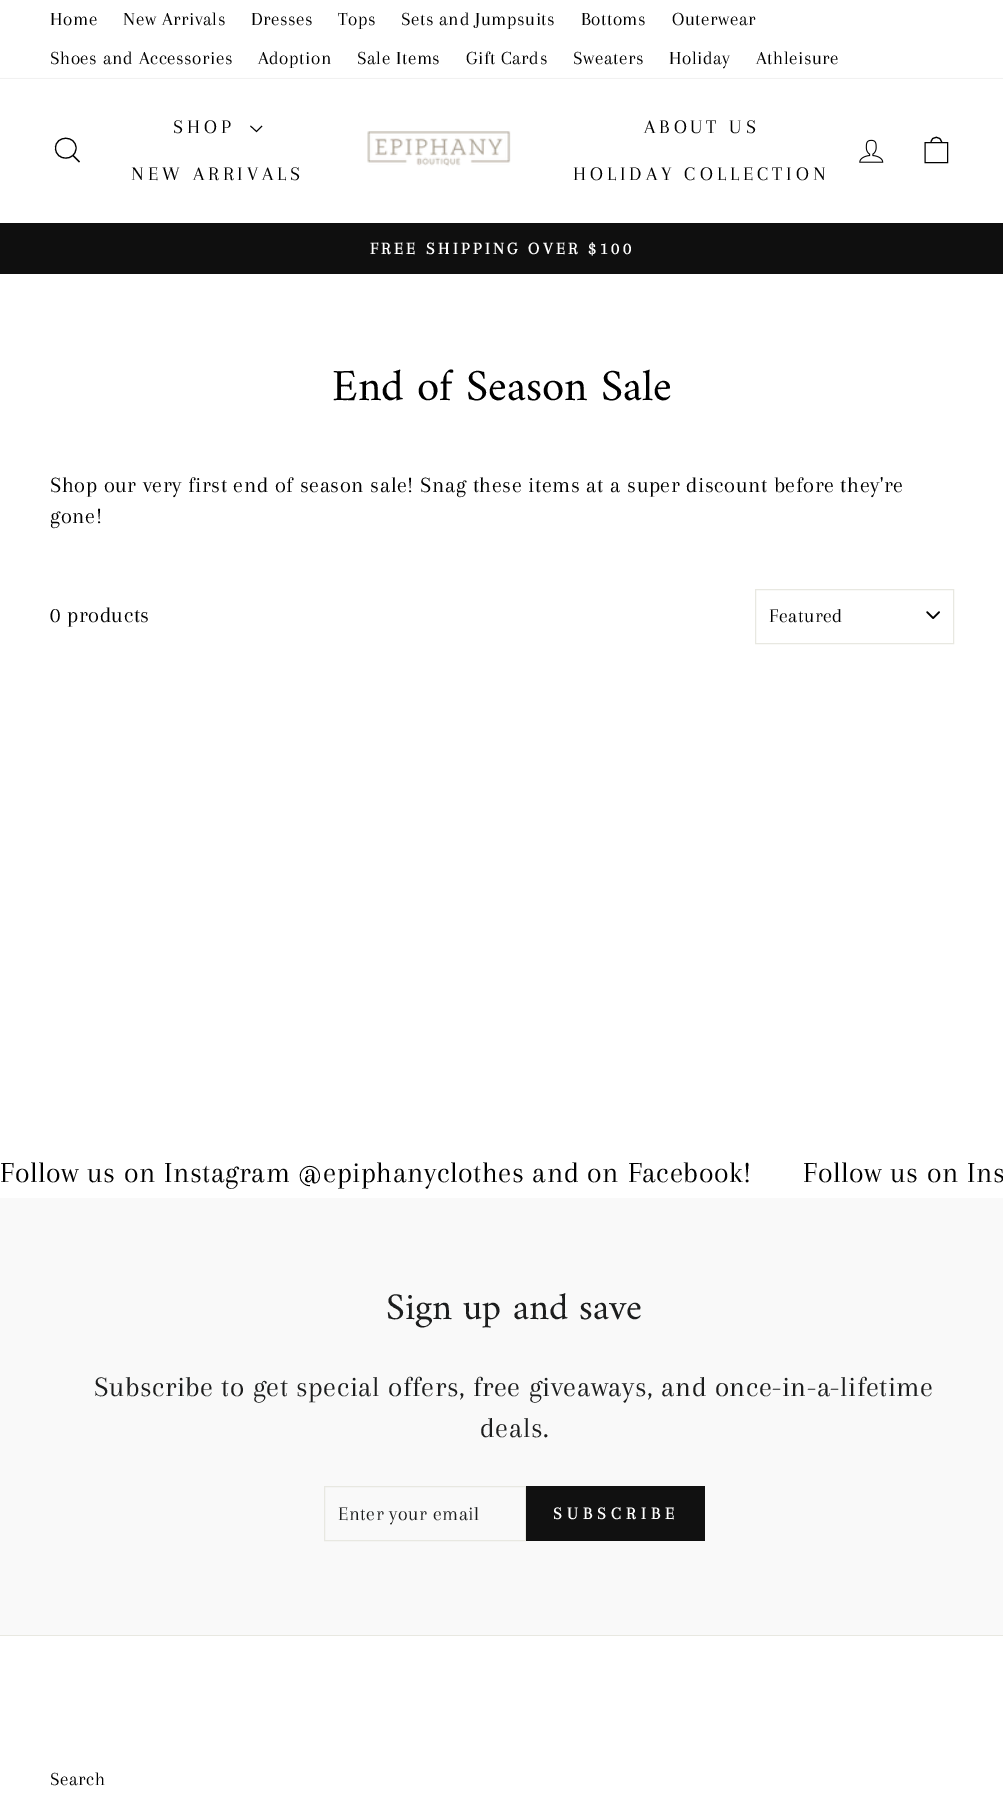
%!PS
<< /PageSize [1003 1799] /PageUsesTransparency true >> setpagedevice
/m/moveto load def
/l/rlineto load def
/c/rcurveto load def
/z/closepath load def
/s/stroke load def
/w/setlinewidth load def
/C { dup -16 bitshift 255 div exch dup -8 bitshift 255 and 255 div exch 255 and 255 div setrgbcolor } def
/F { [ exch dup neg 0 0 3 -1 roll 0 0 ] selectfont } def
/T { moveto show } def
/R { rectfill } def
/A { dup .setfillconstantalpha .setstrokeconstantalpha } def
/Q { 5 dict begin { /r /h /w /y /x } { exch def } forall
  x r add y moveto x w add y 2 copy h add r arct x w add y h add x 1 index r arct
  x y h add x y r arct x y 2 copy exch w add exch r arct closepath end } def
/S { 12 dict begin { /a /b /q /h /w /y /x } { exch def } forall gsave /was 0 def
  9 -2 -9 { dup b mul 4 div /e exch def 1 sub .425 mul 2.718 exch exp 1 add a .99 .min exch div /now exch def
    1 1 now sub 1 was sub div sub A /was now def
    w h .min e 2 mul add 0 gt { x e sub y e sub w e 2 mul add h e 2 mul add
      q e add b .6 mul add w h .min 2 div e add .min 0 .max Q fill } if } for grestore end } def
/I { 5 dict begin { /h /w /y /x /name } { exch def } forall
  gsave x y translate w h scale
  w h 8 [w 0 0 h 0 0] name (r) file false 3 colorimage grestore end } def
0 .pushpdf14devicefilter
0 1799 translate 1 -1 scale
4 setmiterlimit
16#FFFFFF C
0 0 1003 1799 R
/Arapey-Regular 19.1 F
16#000000 C
50 25 m .55 0 (Home) ashow
123 25 m .55 0 (New Arrivals) ashow
251 25 m .55 0 (Dresses) ashow
338 25 m .55 0 (Tops) ashow
401 25 m .55 0 (Sets and Jumpsuits) ashow
581 25 m .55 0 (Bottoms) ashow
672 25 m .55 0 (Outerwear) ashow
50 64 m .55 0 (Shoes and Accessories) ashow
258 64 m .55 0 (Adoption) ashow
357 64 m .55 0 (Sale Items) ashow
466 64 m .55 0 (Gift Cards) ashow
573 64 m .55 0 (Sweaters) ashow
669 64 m .55 0 (Holiday) ashow
756 64 m .55 0 (Athleisure) ashow
16#0F0F0F C
0 223 1003 51 R
16#000000 C
0 79 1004 144 0 .5 .2 S
16#FFFFFF C
0 79 1003 144 R
16#000000 C
1.1 w
76 148 m 0 13.5 -20.5 13.5 -20.5 0 c 0 -13 20.5 -13 20.5 0 c z 79.5 162 m -6.5 -6.5 l s
/Arapey-Regular 20 F
173 133 m 4 0 (SHOP) ashow
.9 w
250.5 126 m 6 5.5 l 5.5 -5.5 l s
131 180 m 4 0 (NEW ARRIVALS) ashow
(1.rgb) 367 131 144 36 I
644 133 m 4 0 (ABOUT US) ashow
573 180 m 4 0 (HOLIDAY COLLECTION) ashow
(2.rgb) 859 139 25 24 I
1.1 w
925 142.5 m 22.5 0 l 0 20 l -22.5 0 l z 931 142.5 m 0 -7 10.5 -7 10.5 0 c s
/Arapey-Bold 17.25 F
16#FFFFFF C
370 254 m 3.4 0 (FREE SHIPPING OVER $100) ashow
/Amiri-Regular 45 F
16#000000 C
(End of Season Sale) 332 400 T
/Arapey-Regular 22.5 F
50 492 m .55 0 (Shop our very first end of season sale! Snag these items at a super discount before they're) ashow
50 523 m .55 0 (gone!) ashow
50 622 m .55 0 (0 products) ashow
(3.rgb) 926 611 14 8 I
16#E8E8E1 C
1 w
755.5 589.5 198 54 rectstroke
/Arapey-Regular 20 F
16#000000 C
769 622 m .5 0 (Featured) ashow
/Arapey-Regular 30 F
0 1182 m .55 0 (Follow us on Instagram @epiphanyclothes and on Facebook!) ashow
803 1182 m .55 0 (Follow us on Ins) ashow
16#F9F9F9 C
0 1198 1003 437 R
/Amiri-Regular 38.25 F
16#1C1D1D C
(Sign up and save) 386 1319 T
/Arapey-Regular 29.25 F
94 1396 m .55 0 (Subscribe to get special offers, free giveaways, and once-in-a-lifetime) ashow
480 1437 m .55 0 (deals.) ashow
16#E8E8E1 C
324.5 1486.5 201 54 rectstroke
/Arapey-Regular 20 F
16#1C1D1D C
338 1520 m .5 0 (Enter your email) ashow
16#111111 C
526 1486 179 55 R
/Arapey-Bold 17.5 F
16#FFFFFF C
553 1519 m 5.25 0 (SUBSCRIBE) ashow
16#E8E8E1 C
0 1635 1003 1 R
/Arapey-Regular 19.1 F
16#000000 C
50 1785 m .55 0 (Search) ashow
.poppdf14devicefilter showpage
